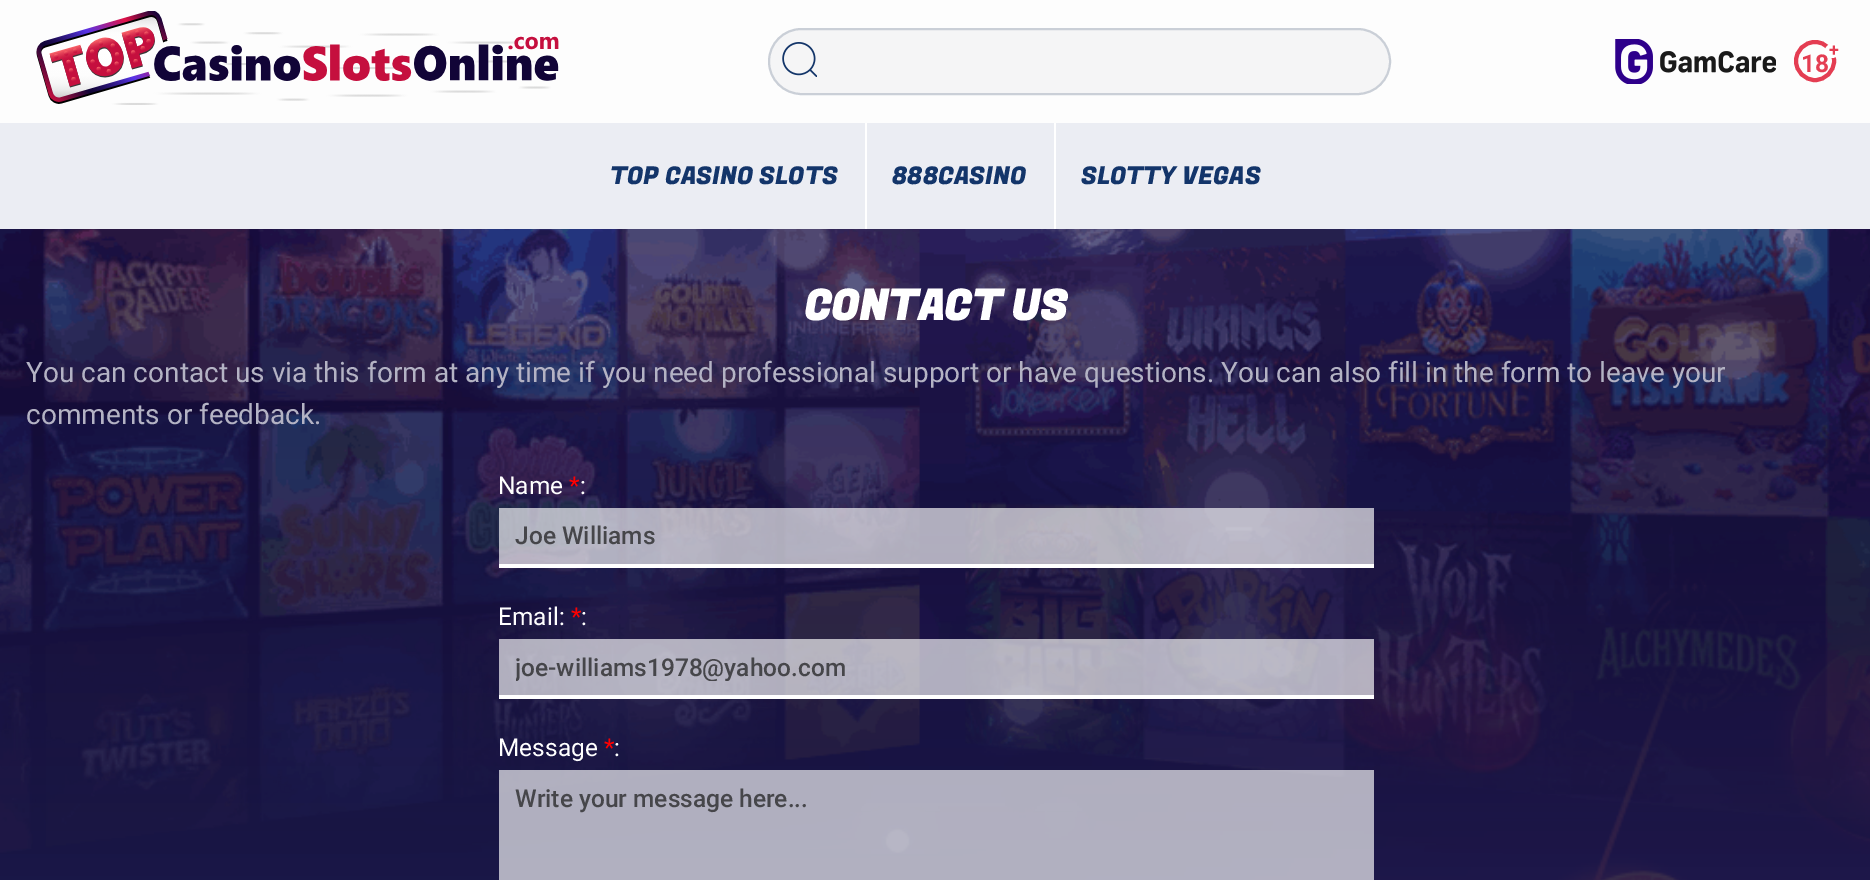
%!PS
<< /PageSize [1870 880] /PageUsesTransparency true >> setpagedevice
/f/fill load def
/s/stroke load def
/q/gsave load def
/Q_/grestore load def
/w/setlinewidth load def
/C { dup -16 bitshift 255 div exch dup -8 bitshift 255 and 255 div exch 255 and 255 div setrgbcolor } def
/F { [ exch dup neg 0 0 3 -1 roll 0 0 ] selectfont } def
/T { moveto show } def
/R { rectfill } def
/A { dup .setfillconstantalpha .setstrokeconstantalpha } def
/O { newpath 0 360 arc closepath } def
/Q { 5 dict begin { /r /h /w /y /x } { exch def } forall
  x r add y moveto x w add y 2 copy h add r arct x w add y h add x 1 index r arct
  x y h add x y r arct x y 2 copy exch w add exch r arct closepath end } def
/I { 5 dict begin { /h /w /y /x /name } { exch def } forall
  gsave x y translate w h scale
  w h 8 [w 0 0 h 0 0] name (r) file false 3 colorimage grestore end } def
0 .pushpdf14devicefilter
0 880 translate 1 -1 scale
4 setmiterlimit
16#110436 C
0 0 1870 880 R
(1.rgb) 0 229 1870 625 I
16#FDFDFD C
0 0 1870 123 R
(2.rgb) 36 11 523 94 I
16#F5F5F6 C
769 29 621 65 32.5 Q q f Q_
16#CACFD7 C
2 w
s
(3.rgb) 782 42 35 35 I
(4.rgb) 1615 39 161 45 I
16#E43D52 C
4 w
1815 61 19 O s
/Roboto-Bold 24.5 F
(18) 1801 72 T
16#FFFFFF C
1832 51 7 O f
/Roboto-Bold 18 F
16#E43D52 C
(+) 1829 56 T
16#EBEDF3 C
0 123 1870 106 R
/FugazOne-Regular 24.5 F
16#13356A C
(TOP CASINO SLOTS) 610 184 T
16#FFFFFF C
865 123 2 106 R
16#13356A C
(888CASINO) 892 184 T
16#FFFFFF C
1054 123 2 106 R
16#13356A C
(SLOTTY VEGAS) 1081 184 T
(5.rgb) 0 229 1870 651 I
/FugazOne-Bold 42 F
16#FFFFFF C
(CONTACT US) 804 320 T
/Roboto-Regular 28 F
16#B4B3C4 C
(You can contact us via this form at any time if you need professional support or have questions. You can also fill in the form to leave your) 26 382 T
(comments or feedback.) 26 424 T
/Roboto-Regular 24.5 F
16#FFFFFF C
(Name) 498 494 T
16#FF0000 C
(*) 569 494 T
16#FFFFFF C
(:) 580 494 T
0.66 A
499 508 875 56 R
1 A
499 564 875 4 R
/Roboto-Medium 24.5 F
16#46464A C
(Joe Williams) 515 544 T
/Roboto-Regular 24.5 F
16#FFFFFF C
(Email:) 498 625 T
16#FF0000 C
(*) 571 625 T
16#FFFFFF C
(:) 581 625 T
0.66 A
499 639 875 56 R
1 A
499 695 875 4 R
q
516 653 840 28 rectclip
/Roboto-Medium 24.5 F
16#46464A C
(joe-williams1978@yahoo.com) 515 676 T
Q_
(Message) 498 756 T
16#FF0000 C
(*) 604 756 T
16#FFFFFF C
(:) 614 756 T
0.66 A
499 770 875 110 R
/Roboto-Medium 24.5 F
1 A
16#46464A C
(Write your message here...) 515 807 T
.poppdf14devicefilter showpage
